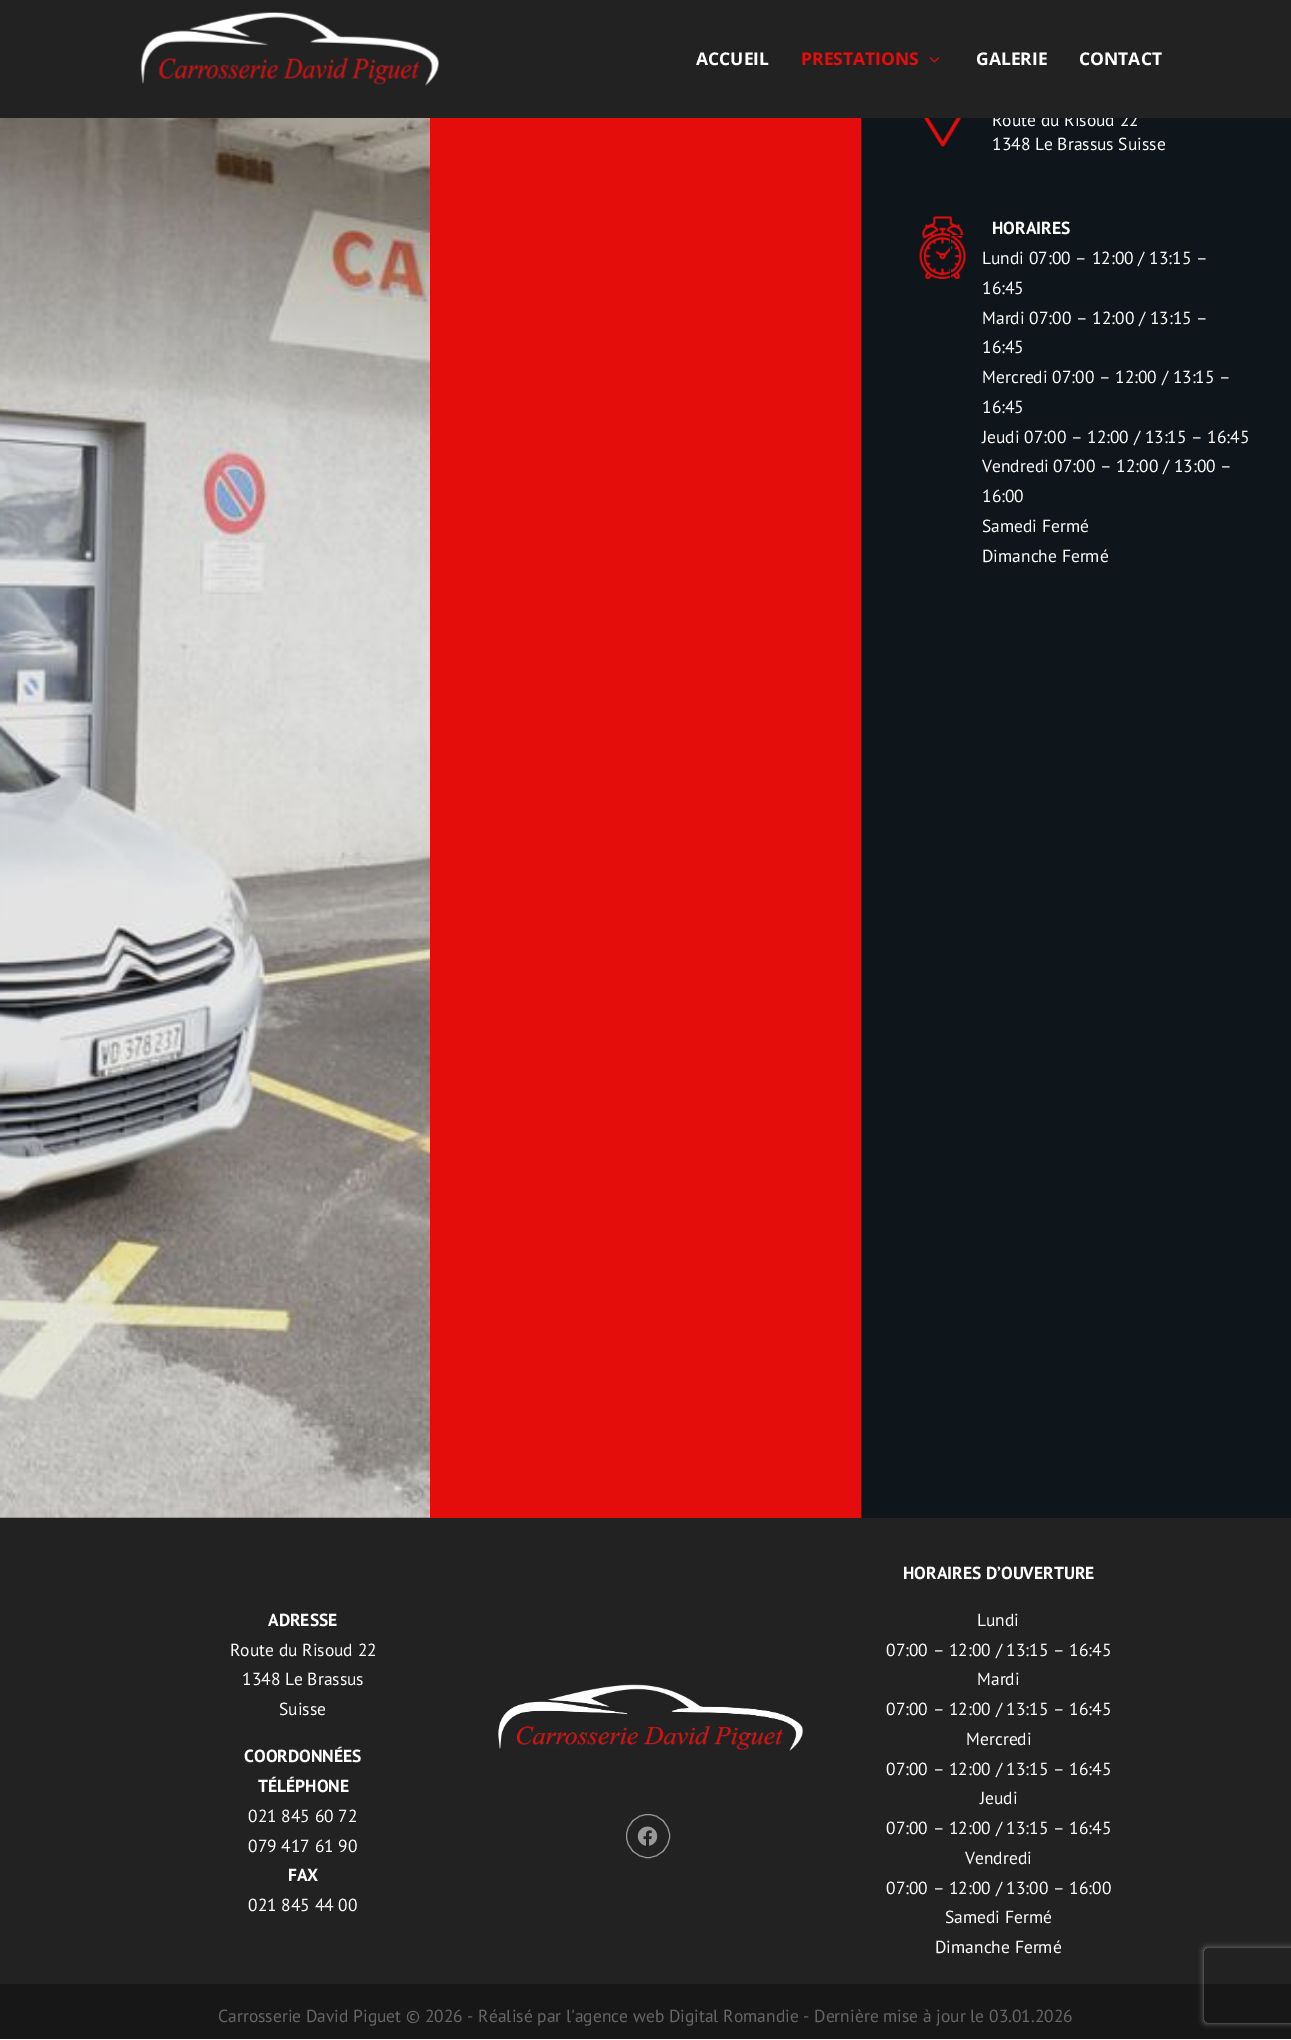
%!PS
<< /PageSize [1291 2040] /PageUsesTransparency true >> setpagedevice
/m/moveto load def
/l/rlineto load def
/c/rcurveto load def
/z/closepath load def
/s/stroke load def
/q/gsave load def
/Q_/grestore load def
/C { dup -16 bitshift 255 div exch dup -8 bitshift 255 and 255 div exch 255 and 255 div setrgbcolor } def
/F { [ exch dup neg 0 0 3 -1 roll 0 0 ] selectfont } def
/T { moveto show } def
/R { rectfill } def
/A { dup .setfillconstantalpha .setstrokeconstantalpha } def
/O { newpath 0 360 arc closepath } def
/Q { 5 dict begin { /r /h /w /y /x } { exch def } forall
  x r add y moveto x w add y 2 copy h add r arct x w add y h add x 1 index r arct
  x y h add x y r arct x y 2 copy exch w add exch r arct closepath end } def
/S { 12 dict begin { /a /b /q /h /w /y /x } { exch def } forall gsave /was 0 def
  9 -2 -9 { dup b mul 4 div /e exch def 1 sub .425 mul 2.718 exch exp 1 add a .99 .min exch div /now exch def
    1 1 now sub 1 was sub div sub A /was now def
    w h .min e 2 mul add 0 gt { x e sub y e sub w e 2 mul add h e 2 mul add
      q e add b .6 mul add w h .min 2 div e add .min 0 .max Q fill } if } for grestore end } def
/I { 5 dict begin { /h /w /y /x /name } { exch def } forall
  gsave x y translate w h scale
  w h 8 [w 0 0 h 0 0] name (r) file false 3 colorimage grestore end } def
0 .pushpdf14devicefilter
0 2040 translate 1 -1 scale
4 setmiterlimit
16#FFFFFF C
0 0 1291 2040 R
16#0E161B C
861 118 430 1400 R
/PTSans-Regular 17.5 F
16#FFFFFF C
(Route du Risoud 22) 992 126 T
16#222222 C
0 0 1291 118 R
(1.rgb) 140 12 299 74 I
/OpenSans-Bold 17.5 F
16#FFFFFF C
(ACCUEIL) 696 65 T
16#E50C0C C
(PRESTATIONS) 801 65 T
(2.rgb) 929 57 10 6 I
16#FFFFFF C
(GALERIE) 976 65 T
(CONTACT) 1079 65 T
(3.rgb) 0 118 430 1400 I
16#E50C0C C
430 118 431 1400 R
(4.rgb) 923 118 39 29 I
/PTSans-Regular 17.5 F
16#FFFFFF C
(1348 Le Brassus Suisse) 992 150 T
(5.rgb) 919 216 47 63 I
/PTSans-Bold 17.5 F
(HORAIRES) 992 234 T
16#0E161B C
950 235 13 1 R
950 235 1 44 R
/PTSans-Regular 17.5 F
16#FFFFFF C
(Lundi 07:00 – 12:00 / 13:15 –) 982 264 T
(16:45) 982 294 T
(Mardi 07:00 – 12:00 / 13:15 –) 982 324 T
(16:45) 982 353 T
(Mercredi 07:00 – 12:00 / 13:15 –) 982 383 T
(16:45) 982 413 T
(Jeudi 07:00 – 12:00 / 13:15 – 16:45) 982 443 T
(Vendredi 07:00 – 12:00 / 13:00 –) 982 472 T
(16:00) 982 502 T
(Samedi Fermé) 982 532 T
(Dimanche Fermé) 982 562 T
16#222222 C
0 1518 1291 466 R
/PTSans-Bold 17.5 F
16#FFFFFF C
(ADRESSE) 268 1626 T
/PTSans-Regular 17.5 F
(Route du Risoud 22) 230 1656 T
(1348 Le Brassus) 242 1685 T
(Suisse) 279 1715 T
/PTSans-Bold 17.5 F
(COORDONNÉES) 244 1762 T
(TÉLÉPHONE) 258 1792 T
/PTSans-Regular 17.5 F
(021 845 60 72) 248 1822 T
(079 417 61 90) 248 1852 T
/PTSans-Bold 17.5 F
(FAX) 288 1881 T
/PTSans-Regular 17.5 F
(021 845 44 00) 248 1911 T
(6.rgb) 498 1684 305 67 I
16#999999 C
648 1836 21.5 O s
(7.rgb) 637 1826 21 20 I
/PTSans-Bold 17.5 F
16#FFFFFF C
(HORAIRES D’OUVERTURE) 903 1579 T
/PTSans-Regular 17.5 F
(Lundi) 977 1626 T
(07:00 – 12:00 / 13:15 – 16:45) 886 1656 T
(Mardi) 977 1685 T
(07:00 – 12:00 / 13:15 – 16:45) 886 1715 T
(Mercredi) 966 1745 T
(07:00 – 12:00 / 13:15 – 16:45) 886 1775 T
(Jeudi) 980 1804 T
(07:00 – 12:00 / 13:15 – 16:45) 886 1834 T
(Vendredi) 965 1864 T
(07:00 – 12:00 / 13:00 – 16:00) 886 1894 T
(Samedi Fermé) 945 1923 T
(Dimanche Fermé) 935 1953 T
16#171717 C
0 1984 1291 55 R
16#666666 C
(Carrosserie David Piguet © 2026 - Réalisé par l'agence web Digital Romandie - Dernière mise à jour le 03.01.2026) 218 2022 T
q
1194 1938 m 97 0 l 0 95 l -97 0 l z 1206.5 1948 m 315 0 l 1.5 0 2.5 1 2.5 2.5 c 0 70 l 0 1.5 -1 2.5 -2.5 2.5 c -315 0 l -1.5 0 -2.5 -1 -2.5 -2.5 c 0 -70 l 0 -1.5 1 -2.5 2.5 -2.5 c z eoclip newpath
16#808080 C
1204 1948 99 75 2.5 3 1 S
Q_
.poppdf14devicefilter showpage
